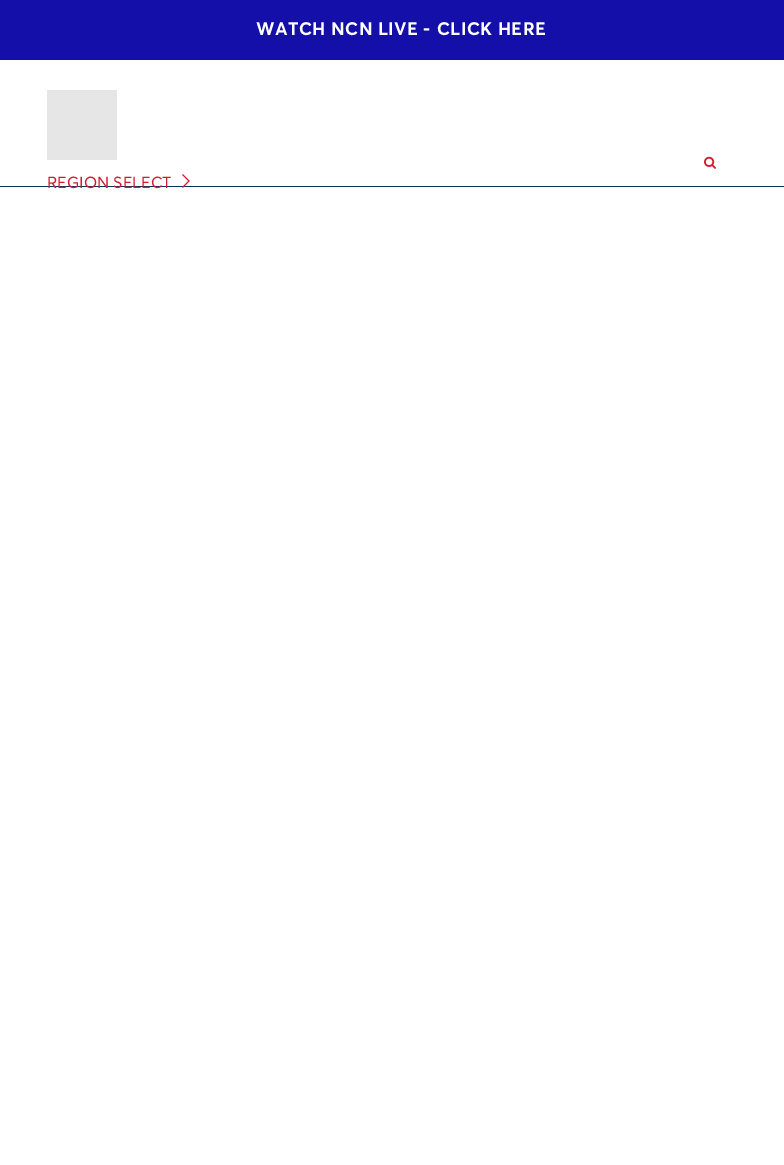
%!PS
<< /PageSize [784 1165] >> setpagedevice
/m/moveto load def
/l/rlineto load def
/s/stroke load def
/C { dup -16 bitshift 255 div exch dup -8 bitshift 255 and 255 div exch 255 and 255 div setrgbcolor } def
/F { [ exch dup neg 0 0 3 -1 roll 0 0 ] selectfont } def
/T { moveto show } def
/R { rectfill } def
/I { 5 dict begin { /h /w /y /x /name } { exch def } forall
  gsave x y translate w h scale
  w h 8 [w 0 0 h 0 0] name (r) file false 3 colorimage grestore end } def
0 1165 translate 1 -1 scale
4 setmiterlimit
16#FFFFFF C
0 0 784 1165 R
16#140FA8 C
0 0 784 60 R
/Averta-Bold 18 F
16#FFFFFF C
256 35 m .4 0 (WATCH NCN LIVE -) ashow
437 35 m .4 0 (CLICK HERE) ashow
16#043556 C
0 186 784 1 R
(1.rgb) 704 156 12 13 I
16#E6E6E6 C
47 90 70 70 R
/Averta-Regular 16 F
16#D7172F C
(REGION SELECT) 47 188 T
182.5 174.5 m 6.5 6.5 l -6.5 6.5 l s
showpage
